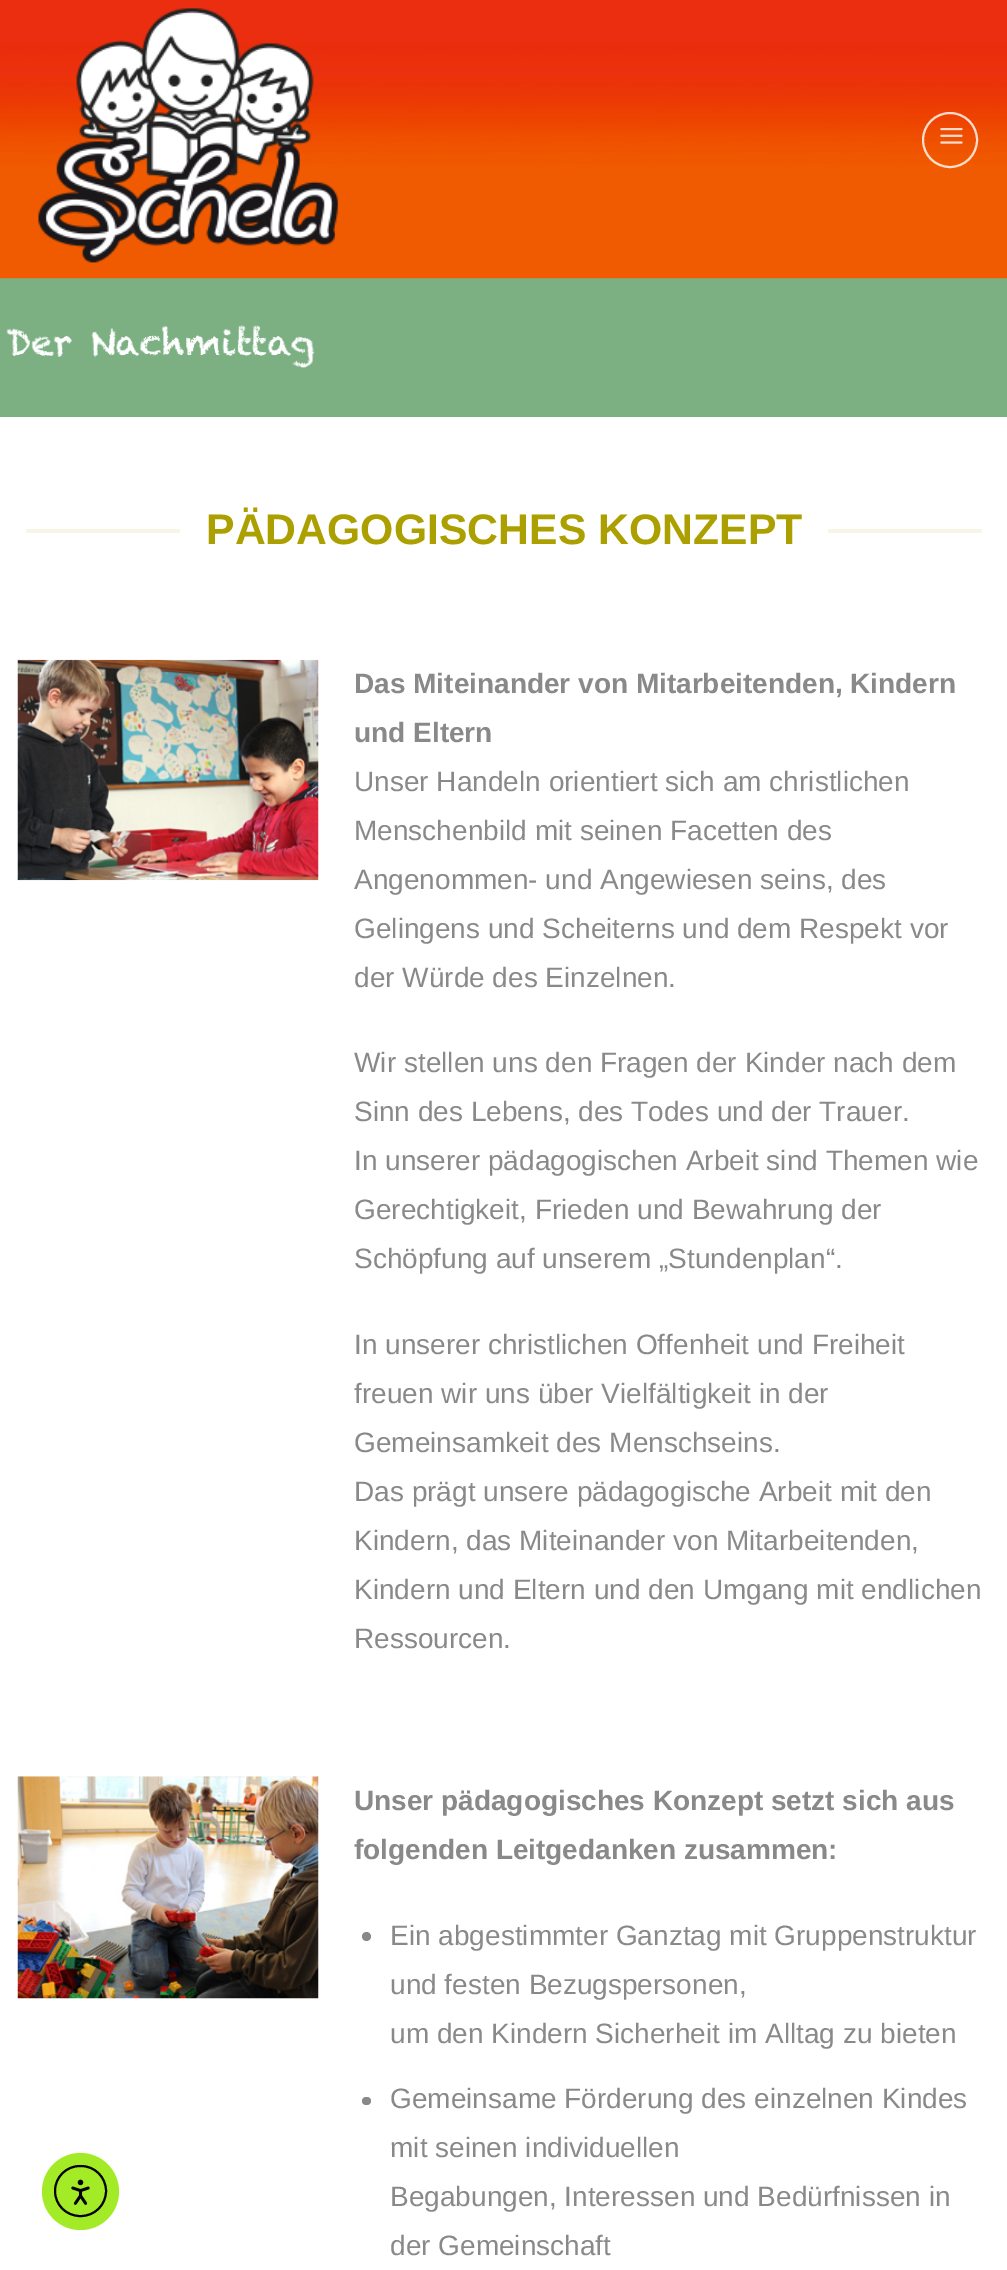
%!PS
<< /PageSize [1007 2270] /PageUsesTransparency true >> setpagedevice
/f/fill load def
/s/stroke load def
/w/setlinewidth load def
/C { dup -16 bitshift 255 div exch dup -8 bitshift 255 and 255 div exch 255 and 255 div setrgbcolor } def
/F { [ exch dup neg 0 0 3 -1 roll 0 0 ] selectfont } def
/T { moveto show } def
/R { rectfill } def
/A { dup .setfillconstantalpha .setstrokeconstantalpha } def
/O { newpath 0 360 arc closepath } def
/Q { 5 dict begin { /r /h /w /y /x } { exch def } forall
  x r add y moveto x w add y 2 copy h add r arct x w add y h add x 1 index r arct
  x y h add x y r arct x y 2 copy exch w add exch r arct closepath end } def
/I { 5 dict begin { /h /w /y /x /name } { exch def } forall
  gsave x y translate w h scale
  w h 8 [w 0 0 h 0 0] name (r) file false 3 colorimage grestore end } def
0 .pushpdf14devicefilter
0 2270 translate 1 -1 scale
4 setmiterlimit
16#FFFFFF C
0 0 1007 2270 R
16#A3EB26 C
80.5 2191.5 38.5 O f
16#000000 C
2 w
55 2166 51 50 25 Q s
(1.rgb) 71 2179 19 26 I
16#7CB083 C
0 278 1007 139 R
(2.rgb) 0 0 1007 279 I
(3.rgb) 38 8 301 255 I
0.8 A
16#FFFFFF C
950 140 27 O s
1 A
(4.rgb) 940 128 23 16 I
(5.rgb) 6 325 309 43 I
16#F7F6E6 C
26 529 154 4 R
/LiberationSans-Bold 42.75 F
16#ACA000 C
(PÄDAGOGISCHES KONZEPT) 206 544 T
16#F7F6E6 C
828 529 154 4 R
(6.rgb) 17 659 302 222 I
/LiberationSans-Bold 28 F
16#898989 C
(Das Miteinander von Mitarbeitenden, Kindern) 354 693 T
(und Eltern) 354 742 T
/LiberationSans-Regular 28 F
(Unser Handeln orientiert sich am christlichen) 354 791 T
(Menschenbild mit seinen Facetten des) 354 840 T
(Angenommen- und Angewiesen seins, des) 354 889 T
(Gelingens und Scheiterns und dem Respekt vor) 354 938 T
(der Würde des Einzelnen.) 354 987 T
(Wir stellen uns den Fragen der Kinder nach dem) 354 1072 T
(Sinn des Lebens, des Todes und der Trauer.) 354 1121 T
(In unserer pädagogischen Arbeit sind Themen wie) 354 1170 T
(Gerechtigkeit, Frieden und Bewahrung der) 354 1219 T
(Schöpfung auf unserem „Stundenplan“.) 354 1268 T
(In unserer christlichen Offenheit und Freiheit) 354 1354 T
(freuen wir uns über Vielfältigkeit in der) 354 1403 T
(Gemeinsamkeit des Menschseins.) 354 1452 T
(Das prägt unsere pädagogische Arbeit mit den) 354 1501 T
(Kindern, das Miteinander von Mitarbeitenden,) 354 1550 T
(Kindern und Eltern und den Umgang mit endlichen) 354 1599 T
(Ressourcen.) 354 1648 T
(7.rgb) 17 1776 302 223 I
/LiberationSans-Bold 28 F
(Unser pädagogisches Konzept setzt sich aus) 354 1810 T
(folgenden Leitgedanken zusammen:) 354 1859 T
366.5 1936.5 4.5 O f
/LiberationSans-Regular 28 F
(Ein abgestimmter Ganztag mit Gruppenstruktur) 390 1945 T
(und festen Bezugspersonen,) 390 1994 T
(um den Kindern Sicherheit im Alltag zu bieten) 390 2043 T
362 2097 9 8 4 Q f
(Gemeinsame Förderung des einzelnen Kindes) 390 2108 T
(mit seinen individuellen) 390 2157 T
(Begabungen, Interessen und Bedürfnissen in) 390 2206 T
(der Gemeinschaft) 390 2255 T
.poppdf14devicefilter showpage
